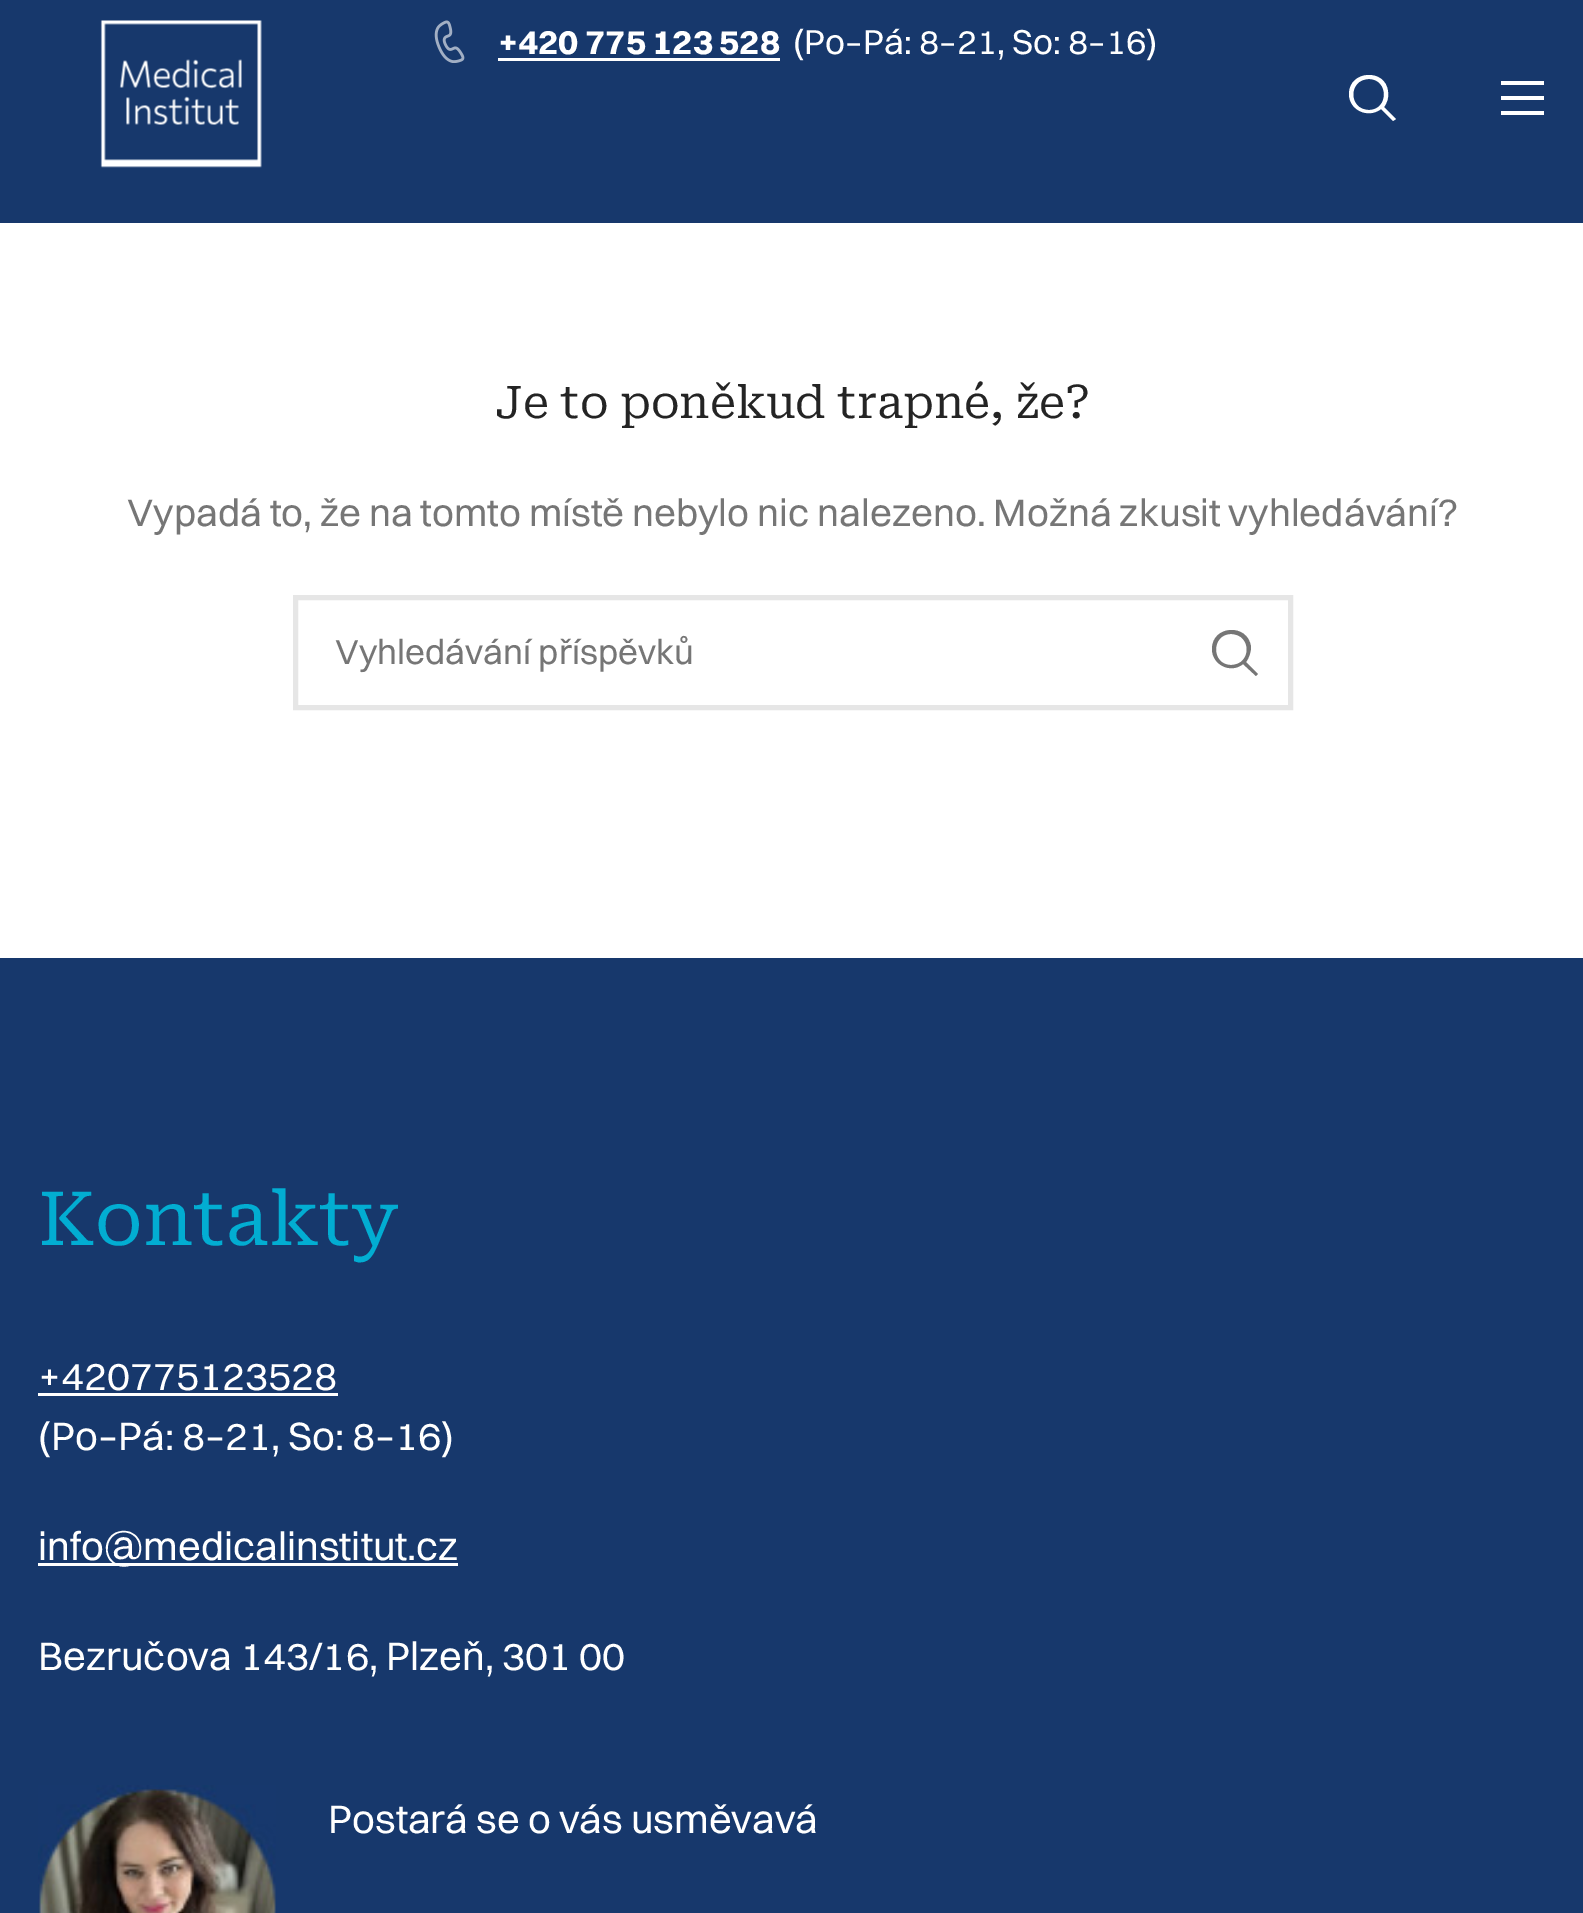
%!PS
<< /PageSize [1583 1913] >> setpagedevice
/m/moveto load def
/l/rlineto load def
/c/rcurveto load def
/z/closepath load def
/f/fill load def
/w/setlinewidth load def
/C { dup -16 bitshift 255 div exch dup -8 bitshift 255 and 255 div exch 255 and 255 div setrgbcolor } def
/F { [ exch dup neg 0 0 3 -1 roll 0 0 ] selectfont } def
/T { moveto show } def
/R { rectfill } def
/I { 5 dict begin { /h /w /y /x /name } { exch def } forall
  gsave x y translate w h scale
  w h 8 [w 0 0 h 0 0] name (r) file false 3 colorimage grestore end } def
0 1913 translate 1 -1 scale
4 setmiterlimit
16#FFFFFF C
0 0 1583 1913 R
16#17386C C
0 0 1583 223 R
(1.rgb) 100 20 162 148 I
16#FFFFFF C
1349 94 m 0 16 19 25 32 15 c 12 12 l 3 -2 l -12 -12 l 3 -4 5 -10 4 -15 c -2 -24 -39 -22 -39 2 c z 1369 110 m -21 0 -21 -31 0 -31 c 20 0 20 31 0 31 c z f
1501 85 m 43 0 l 0 -4 l -43 0 l z 1501 100 m 43 0 l 0 -4 l -43 0 l z 1501 115 m 43 0 l 0 -4 l -43 0 l z f
(2.rgb) 434 20 31 43 I
/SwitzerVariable-Bold 35 F
(+420 775 123 528) 498 54 T
498 58 282 3 R
/SwitzerVariable-Regular 35 F
(\(Po–Pá: 8–21, So: 8–16\)) 793 54 T
/RobotoSerif-Regular 45 F
16#242424 C
(Je to poněkud trapné, že?) 495 418 T
/SwitzerVariable-Regular 38.5 F
16#767676 C
(Vypadá to, že na tomto místě nebylo nic nalezeno. Možná zkusit vyhledávání?) 127 526 T
16#E6E6E6 C
5 w
295.5 597.5 995 110 rectstroke
/SwitzerVariable-Regular 35 F
16#767676 C
(Vyhledávání příspěvků) 335 664 T
1212 649 m 0 16 19 25 31 15 c 13 12 l 2 -2 l -12 -12 l 3 -4 5 -10 5 -15 c -3 -24 -39 -22 -39 2 c z 1231 665 m -20 0 -20 -31 0 -31 c 21 0 21 31 0 31 c z f
16#17386C C
0 958 1583 955 R
/RobotoSerif-Regular 75 F
16#02ADD2 C
(Kontakty) 38 1245 T
/SwitzerVariable-Regular 40 F
16#FFFFFF C
(+420775123528) 38 1390 T
38 1393 300 3 R
(\(Po–Pá: 8–21, So: 8–16\)) 38 1450 T
38 1563 420 3 R
(info@medicalinstitut.cz) 38 1560 T
(Bezručova 143/16, Plzeň, 301 00) 38 1670 T
(3.rgb) 38 1785 238 128 I
(Postará se o vás usměvavá) 328 1833 T
showpage
